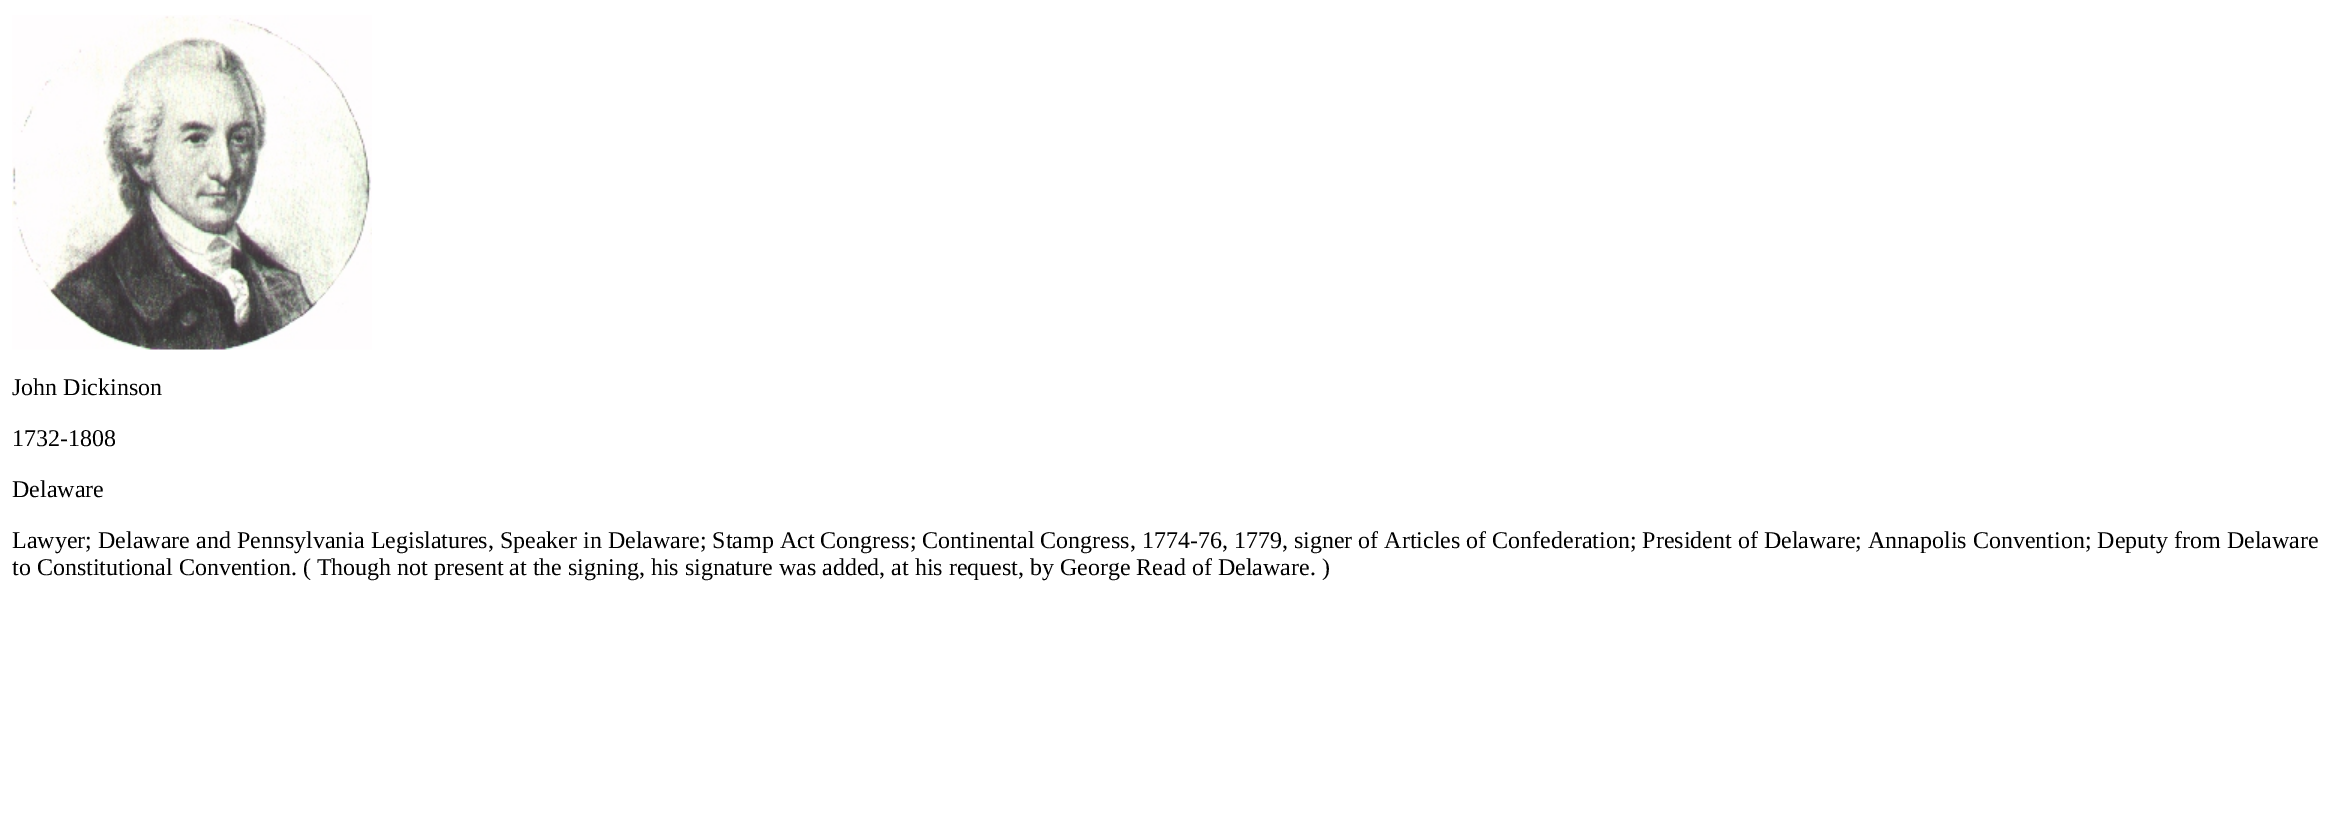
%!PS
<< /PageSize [2341 828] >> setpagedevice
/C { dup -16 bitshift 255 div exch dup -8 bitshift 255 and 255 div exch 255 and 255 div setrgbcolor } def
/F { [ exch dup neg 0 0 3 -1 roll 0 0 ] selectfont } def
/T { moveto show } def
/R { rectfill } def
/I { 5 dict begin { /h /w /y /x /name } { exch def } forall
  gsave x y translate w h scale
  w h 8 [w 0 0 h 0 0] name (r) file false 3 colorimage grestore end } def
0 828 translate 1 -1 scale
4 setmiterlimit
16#FFFFFF C
0 0 2341 828 R
(1.rgb) 12 15 360 335 I
/LiberationSerif-Regular 24 F
16#000000 C
(John Dickinson) 12 395 T
(1732-1808) 12 446 T
(Delaware) 12 497 T
(Lawyer; Delaware and Pennsylvania Legislatures, Speaker in Delaware; Stamp Act Congress; Continental Congress, 1774-76, 1779, signer of Articles of Confederation; President of Delaware; Annapolis Convention; Deputy from Delaware) 12 548 T
(to Constitutional Convention. \( Though not present at the signing, his signature was added, at his request, by George Read of Delaware. \)) 12 575 T
showpage
